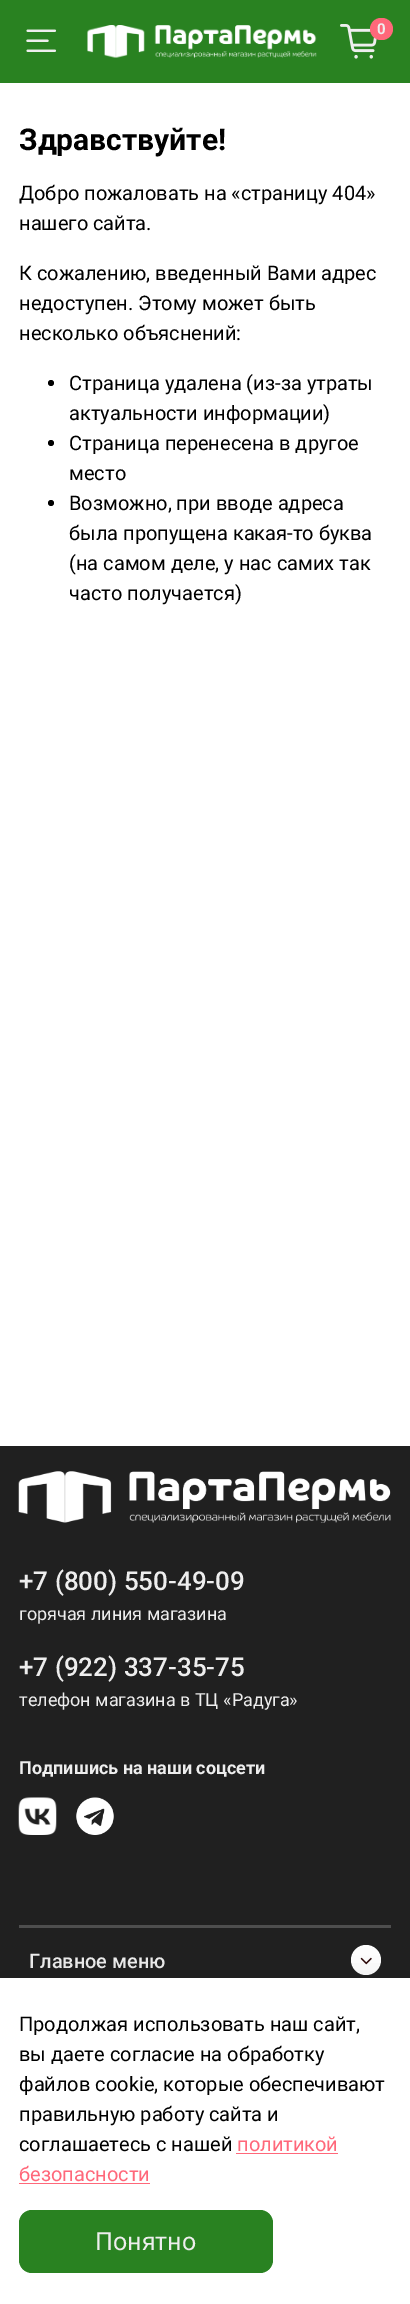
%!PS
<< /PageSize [410 2304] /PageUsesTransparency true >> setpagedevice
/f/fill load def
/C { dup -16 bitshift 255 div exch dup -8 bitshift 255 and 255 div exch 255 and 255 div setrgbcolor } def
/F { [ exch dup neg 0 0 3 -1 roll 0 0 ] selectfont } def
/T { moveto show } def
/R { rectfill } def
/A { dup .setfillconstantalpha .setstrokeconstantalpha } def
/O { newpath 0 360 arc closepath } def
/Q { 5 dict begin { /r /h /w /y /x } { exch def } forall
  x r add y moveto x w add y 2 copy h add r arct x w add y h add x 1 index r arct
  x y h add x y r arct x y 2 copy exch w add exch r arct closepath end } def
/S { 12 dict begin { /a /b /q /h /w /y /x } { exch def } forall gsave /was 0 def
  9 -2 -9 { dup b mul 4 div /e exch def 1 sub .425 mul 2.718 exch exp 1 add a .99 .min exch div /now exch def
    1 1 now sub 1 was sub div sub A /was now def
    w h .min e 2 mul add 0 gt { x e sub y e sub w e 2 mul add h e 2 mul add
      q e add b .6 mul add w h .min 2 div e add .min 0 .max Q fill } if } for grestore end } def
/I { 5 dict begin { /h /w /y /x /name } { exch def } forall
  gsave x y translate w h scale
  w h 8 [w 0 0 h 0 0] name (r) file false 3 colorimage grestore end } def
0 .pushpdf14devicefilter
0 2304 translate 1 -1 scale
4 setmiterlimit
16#FFFFFF C
0 0 410 2304 R
16#298221 C
0 0 410 83 R
(1.rgb) 26 29 31 23 I
(2.rgb) 87 25 230 33 I
(3.rgb) 340 24 37 35 I
16#FF687A C
370 18 23 22 11 Q f
/Roboto-Bold 15 F
16#EEEEEE C
(0) 377 34 T
/Roboto-Bold 30 F
16#000000 C
(Здравствуйте!) 19 150 T
/Roboto-Regular 20 F
(Добро пожаловать на «страницу 404») 19 200 T
(нашего сайта.) 19 230 T
(К сожалению, введенный Вами адрес) 19 280 T
(недоступен. Этому может быть) 19 310 T
(несколько объяснений:) 19 340 T
51 383 3 O f
(Страница удалена \(из-за утраты) 69 390 T
(актуальности информации\)) 69 420 T
51 443 3 O f
(Страница перенесена в другое) 69 450 T
(место) 69 480 T
51 503 3 O f
(Возможно, при вводе адреса) 69 510 T
(была пропущена какая-то буква) 69 540 T
(\(на самом деле, у нас самих так) 69 570 T
(часто получается\)) 69 600 T
16#202020 C
0 1446 410 532 R
(4.rgb) 18 1471 373 52 I
/Roboto-Medium 26 F
16#EEEEEE C
(+7 \(800\) 550-49-09) 19 1590 T
/Roboto-Regular 18 F
(горячая линия магазина) 19 1620 T
/Roboto-Medium 26 F
(+7 \(922\) 337-35-75) 19 1676 T
/Roboto-Regular 18 F
(телефон магазина в ТЦ «Радуга») 19 1706 T
/Roboto-Bold 18 F
(Подпишись на наши соцсети) 19 1774 T
(5.rgb) 18 1797 39 38 I
(6.rgb) 76 1797 38 38 I
16#4E4E4E C
19 1925 372 3 R
/Roboto-Medium 20 F
16#EEEEEE C
(Главное меню) 29 1968 T
16#FFFFFF C
366 1960 15 O f
(7.rgb) 360 1957 12 8 I
16#000000 C
-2 1974 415 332 0 14.5 .09 S
16#FFFFFF C
0 1978 410 326 R
/Roboto-Regular 20 F
16#000000 C
(Продолжая использовать наш сайт,) 19 2031 T
(вы даете согласие на обработку) 19 2061 T
(файлов cookie, которые обеспечивают) 19 2091 T
(правильную работу сайта и) 19 2121 T
(соглашаетесь с нашей) 19 2151 T
16#FF687A C
(политикой) 237 2151 T
236 2153 102 1 R
(безопасности) 19 2181 T
19 2183 131 1 R
16#298221 C
19 2210 254 63 13 Q f
/Roboto-Regular 25 F
16#EEEEEE C
(Понятно) 95 2250 T
.poppdf14devicefilter showpage
